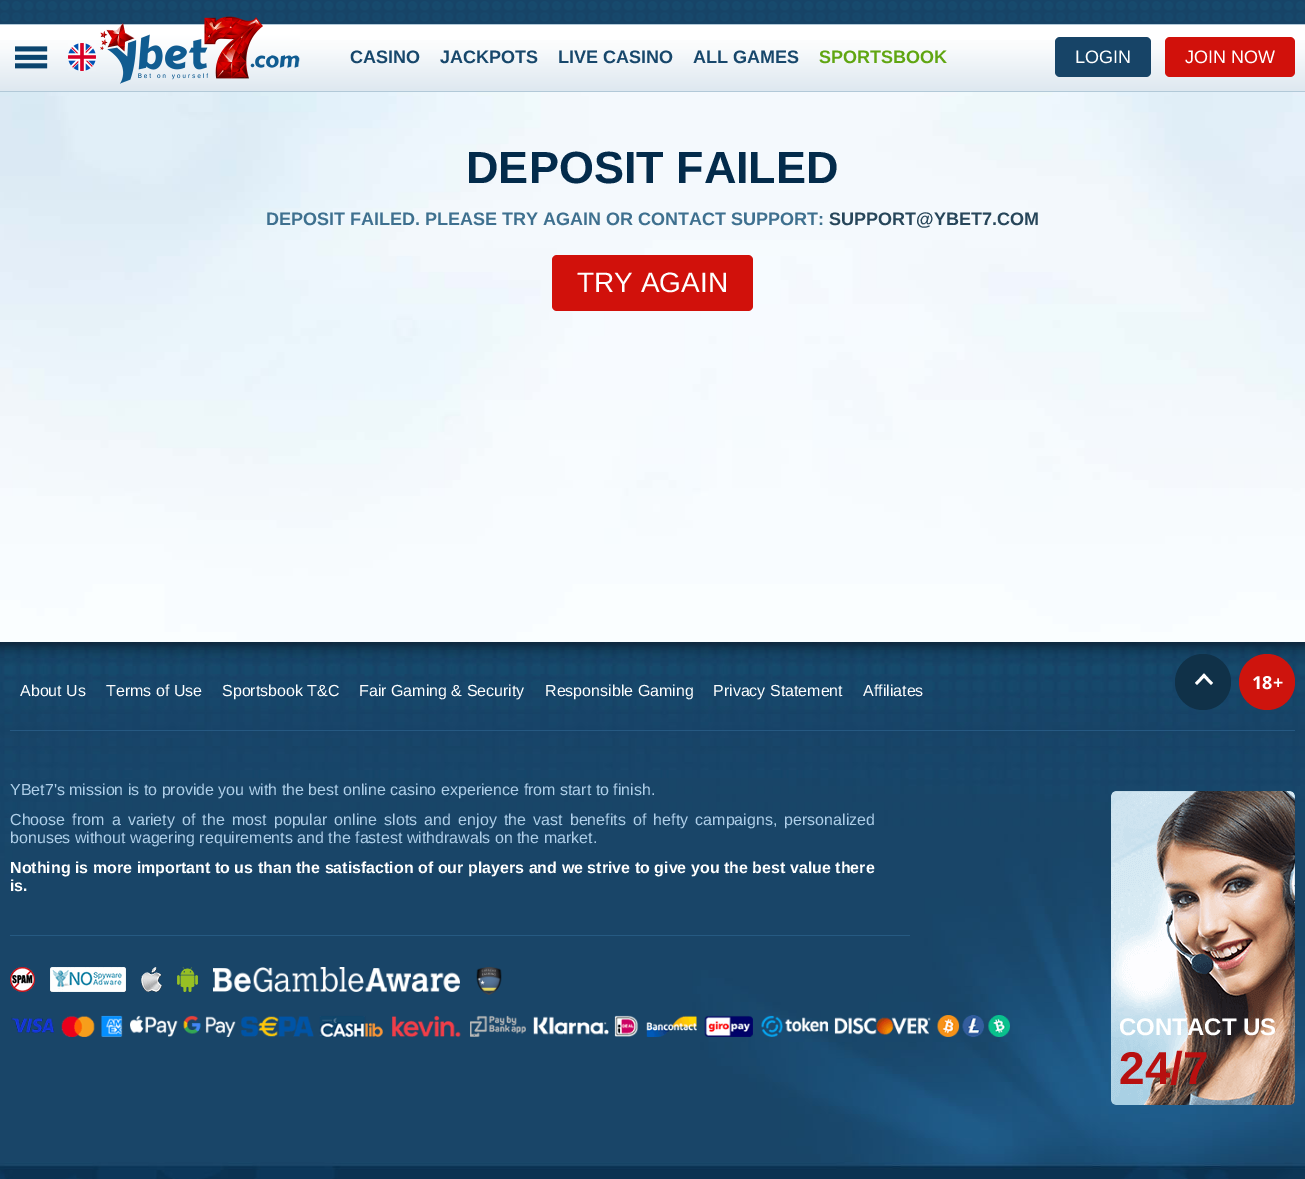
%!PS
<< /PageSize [1305 1179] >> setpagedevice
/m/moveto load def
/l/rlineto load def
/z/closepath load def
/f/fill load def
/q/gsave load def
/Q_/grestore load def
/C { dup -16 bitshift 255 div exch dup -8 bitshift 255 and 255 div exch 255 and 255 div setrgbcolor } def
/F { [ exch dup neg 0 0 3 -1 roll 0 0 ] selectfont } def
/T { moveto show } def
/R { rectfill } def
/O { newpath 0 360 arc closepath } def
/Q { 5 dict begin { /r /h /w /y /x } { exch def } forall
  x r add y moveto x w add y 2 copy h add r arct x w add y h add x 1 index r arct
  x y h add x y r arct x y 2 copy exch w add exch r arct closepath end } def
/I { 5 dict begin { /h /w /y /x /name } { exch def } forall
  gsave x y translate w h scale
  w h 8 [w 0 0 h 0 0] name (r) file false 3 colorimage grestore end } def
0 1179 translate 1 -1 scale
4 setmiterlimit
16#FFFFFF C
0 0 1305 1179 R
(1.rgb) 0 92 1305 550 I
(2.rgb) 0 0 1305 24 I
q 0 40 m 1305 0 l 0 51 l -1305 0 l z clip newpath
<< /ShadingType 2 /ColorSpace /DeviceRGB /Coords [653 25 653 91] /Extend [true true] /Function << /FunctionType 3 /Domain [0 1] /Functions [<< /FunctionType 2 /Domain [0 1] /C0 [1 1 1] /C1 [1 1 1] /N 1 >> << /FunctionType 2 /Domain [0 1] /C0 [1 1 1] /C1 [.976 .984 .988] /N 1 >> << /FunctionType 2 /Domain [0 1] /C0 [.976 .984 .988] /C1 [.871 .91 .941] /N 1 >>] /Bounds [.14 .35] /Encode [0 1 0 1 0 1] >> >> shfill Q_
16#B2C9D8 C
0 24 1305 1 R
0 91 1305 1 R
(3.rgb) 100 16 200 68 I
(4.rgb) 15 46 33 23 I
(5.rgb) 68 43 28 28 I
/LiberationSans-Bold 18 F
16#17476B C
(CASINO) 350 63 T
(JACKPOTS) 440 63 T
(LIVE CASINO) 558 63 T
(ALL GAMES) 693 63 T
16#60A612 C
(SPORTSBOOK) 819 63 T
16#174467 C
1055 37 96 40 5 Q f
/LiberationSans-Regular 18 F
16#FFFFFF C
(LOGIN) 1075 63 T
16#D1110B C
1165 37 130 40 5 Q f
16#FFFFFF C
(JOIN NOW) 1185 63 T
/LiberationSans-Bold 45 F
16#032B4B C
(DEPOSIT FAILED) 466 183 T
/LiberationSans-Bold 18 F
16#3E708F C
(DEPOSIT FAILED. PLEASE TRY AGAIN OR CONTACT SUPPORT:) 266 225 T
16#27465A C
(SUPPORT@YBET7.COM) 829 225 T
16#D1110B C
552 255 201 56 5 Q f
/LiberationSans-Regular 28 F
16#FFFFFF C
(TRY AGAIN) 577 292 T
(6.rgb) 0 642 1305 537 I
16#265982 C
10 730 1285 1 R
/LiberationSans-Regular 16 F
16#FFFFFF C
(About Us) 20 696 T
(Terms of Use) 106 696 T
(Sportsbook T&C) 222 696 T
(Fair Gaming & Security) 359 696 T
(Responsible Gaming) 545 696 T
(Privacy Statement) 713 696 T
(Affiliates) 863 696 T
16#103148 C
1203 682 28 O f
16#FFFFFF C
1206 675.5 m -9 9.5 l -2 -2 l 9 -9.5 l z f
1213 683 m -2 2 l -9 -9.5 l 2 -2 l z f
16#CE140D C
1267 682 28 O f
/OpenSans-Bold 18 F
16#FFFFFF C
(18+) 1252 689 T
/LiberationSans-Regular 16 F
16#AFCFE9 C
(YBet7's mission is to provide you with the best online casino experience from start to finish.) 10 795 T
10 825 m 2.75 0 32 (Choose from a variety of the most popular online slots and enjoy the vast benefits of hefty campaigns, personalized) widthshow
(bonuses without wagering requirements and the fastest withdrawals on the market.) 10 843 T
/LiberationSans-Bold 16 F
16#FFFFFF C
10 873 m .1 0 32 (Nothing is more important to us than the satisfaction of our players and we strive to give you the best value there) widthshow
(is.) 10 891 T
(7.rgb) 1111 791 184 314 I
/LiberationSans-Bold 24 F
(CONTACT US) 1119 1035 T
/LiberationSans-Bold 46 F
16#B81010 C
(24/7) 1119 1084 T
16#265A82 C
10 935 900 1 R
(8.rgb) 10 967 25 25 I
(9.rgb) 50 967 76 25 I
(10.rgb) 141 967 21 25 I
(11.rgb) 177 967 21 25 I
(12.rgb) 213 967 247 25 I
(13.rgb) 476 967 26 28 I
(14.rgb) 11 1015 999 22 I
showpage
